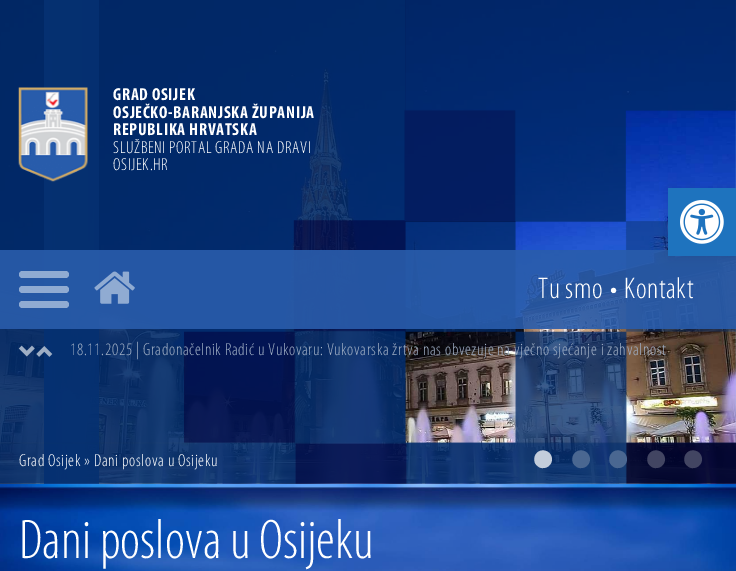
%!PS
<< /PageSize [736 571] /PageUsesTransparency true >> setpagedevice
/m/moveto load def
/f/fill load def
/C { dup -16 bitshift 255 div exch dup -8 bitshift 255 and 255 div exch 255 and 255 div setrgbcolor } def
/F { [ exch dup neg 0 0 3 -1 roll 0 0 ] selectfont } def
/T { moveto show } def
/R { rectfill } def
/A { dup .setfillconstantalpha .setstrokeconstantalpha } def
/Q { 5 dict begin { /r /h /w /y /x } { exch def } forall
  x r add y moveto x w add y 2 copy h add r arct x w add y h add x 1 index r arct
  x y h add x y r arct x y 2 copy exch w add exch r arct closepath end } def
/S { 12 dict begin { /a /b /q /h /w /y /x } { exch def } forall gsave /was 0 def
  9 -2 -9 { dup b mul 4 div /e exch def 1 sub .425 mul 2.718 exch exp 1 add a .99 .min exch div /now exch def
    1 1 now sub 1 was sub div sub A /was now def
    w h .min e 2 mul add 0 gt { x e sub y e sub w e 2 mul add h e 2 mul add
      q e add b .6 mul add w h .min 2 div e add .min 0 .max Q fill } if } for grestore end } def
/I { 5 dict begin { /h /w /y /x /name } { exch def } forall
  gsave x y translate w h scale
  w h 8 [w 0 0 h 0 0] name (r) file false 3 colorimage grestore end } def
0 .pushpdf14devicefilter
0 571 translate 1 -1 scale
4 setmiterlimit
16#FFFFFF C
0 0 736 571 R
(2.rgb) 0 0 736 484 I
(3.rgb) 735 0 1 484 I
(9.rgb) 0 483 736 88 I
(1.rgb) 0 0 736 484 I
(4.rgb) 18 87 70 95 I
/Myriad-Bold 17.5 F
113 100 m .62 0 (GRAD OSIJEK) ashow
113 118 m .62 0 (OSJEČKO-BARANJSKA ŽUPANIJA) ashow
113 135 m .62 0 (REPUBLIKA HRVATSKA) ashow
/Myriad-Light 17.5 F
113 153 m .62 0 (SLUŽBENI PORTAL GRADA NA DRAVI) ashow
113 170 m .62 0 (OSIJEK.HR) ashow
0.9 A
16#295CAB C
0 250 736 79 R
1 A
16#90ABD2 C
19 271 50 7 3.5 Q f
19 286 50 7 3.5 Q f
19 301 50 7 3.5 Q f
(5.rgb) 94 271 41 33 I
/Myriad-Light 30 F
16#FFFFFF C
538 298 m .62 0 (Tu smo) ashow
610 298 m .62 0 (•) ashow
624 298 m .62 0 (Kontakt) ashow
(6.rgb) 18 345 17 12 I
(7.rgb) 36 346 17 11 I
/Myriad-Light 17.5 F
16#9FAEC4 C
70 355 m .62 0 (18.11.2025 | Gradonačelnik Radić u Vukovaru: Vukovarska žrtva nas obvezuje na vječno sjećanje i zahvalnost) ashow
16#FFFFFF C
19 466 m .62 0 (Grad Osijek » Dani poslova u Osijeku) ashow
/LiberationSerif-Regular 75 F
16#C3CDDB C
(•) 530 484 T
16#4A6791 C
(•) 568 484 T
(•) 605 484 T
16#424562 C
(•) 643 484 T
(•) 680 484 T
16#000000 C
668 188 68 68 0 6 .1 S
16#1E73BE C
668 188 68 68 R
(8.rgb) 680 200 44 44 I
/Myriad-Light 56.25 F
16#FFFFFF C
(Dani poslova u Osijeku) 19 558 T
.poppdf14devicefilter showpage
